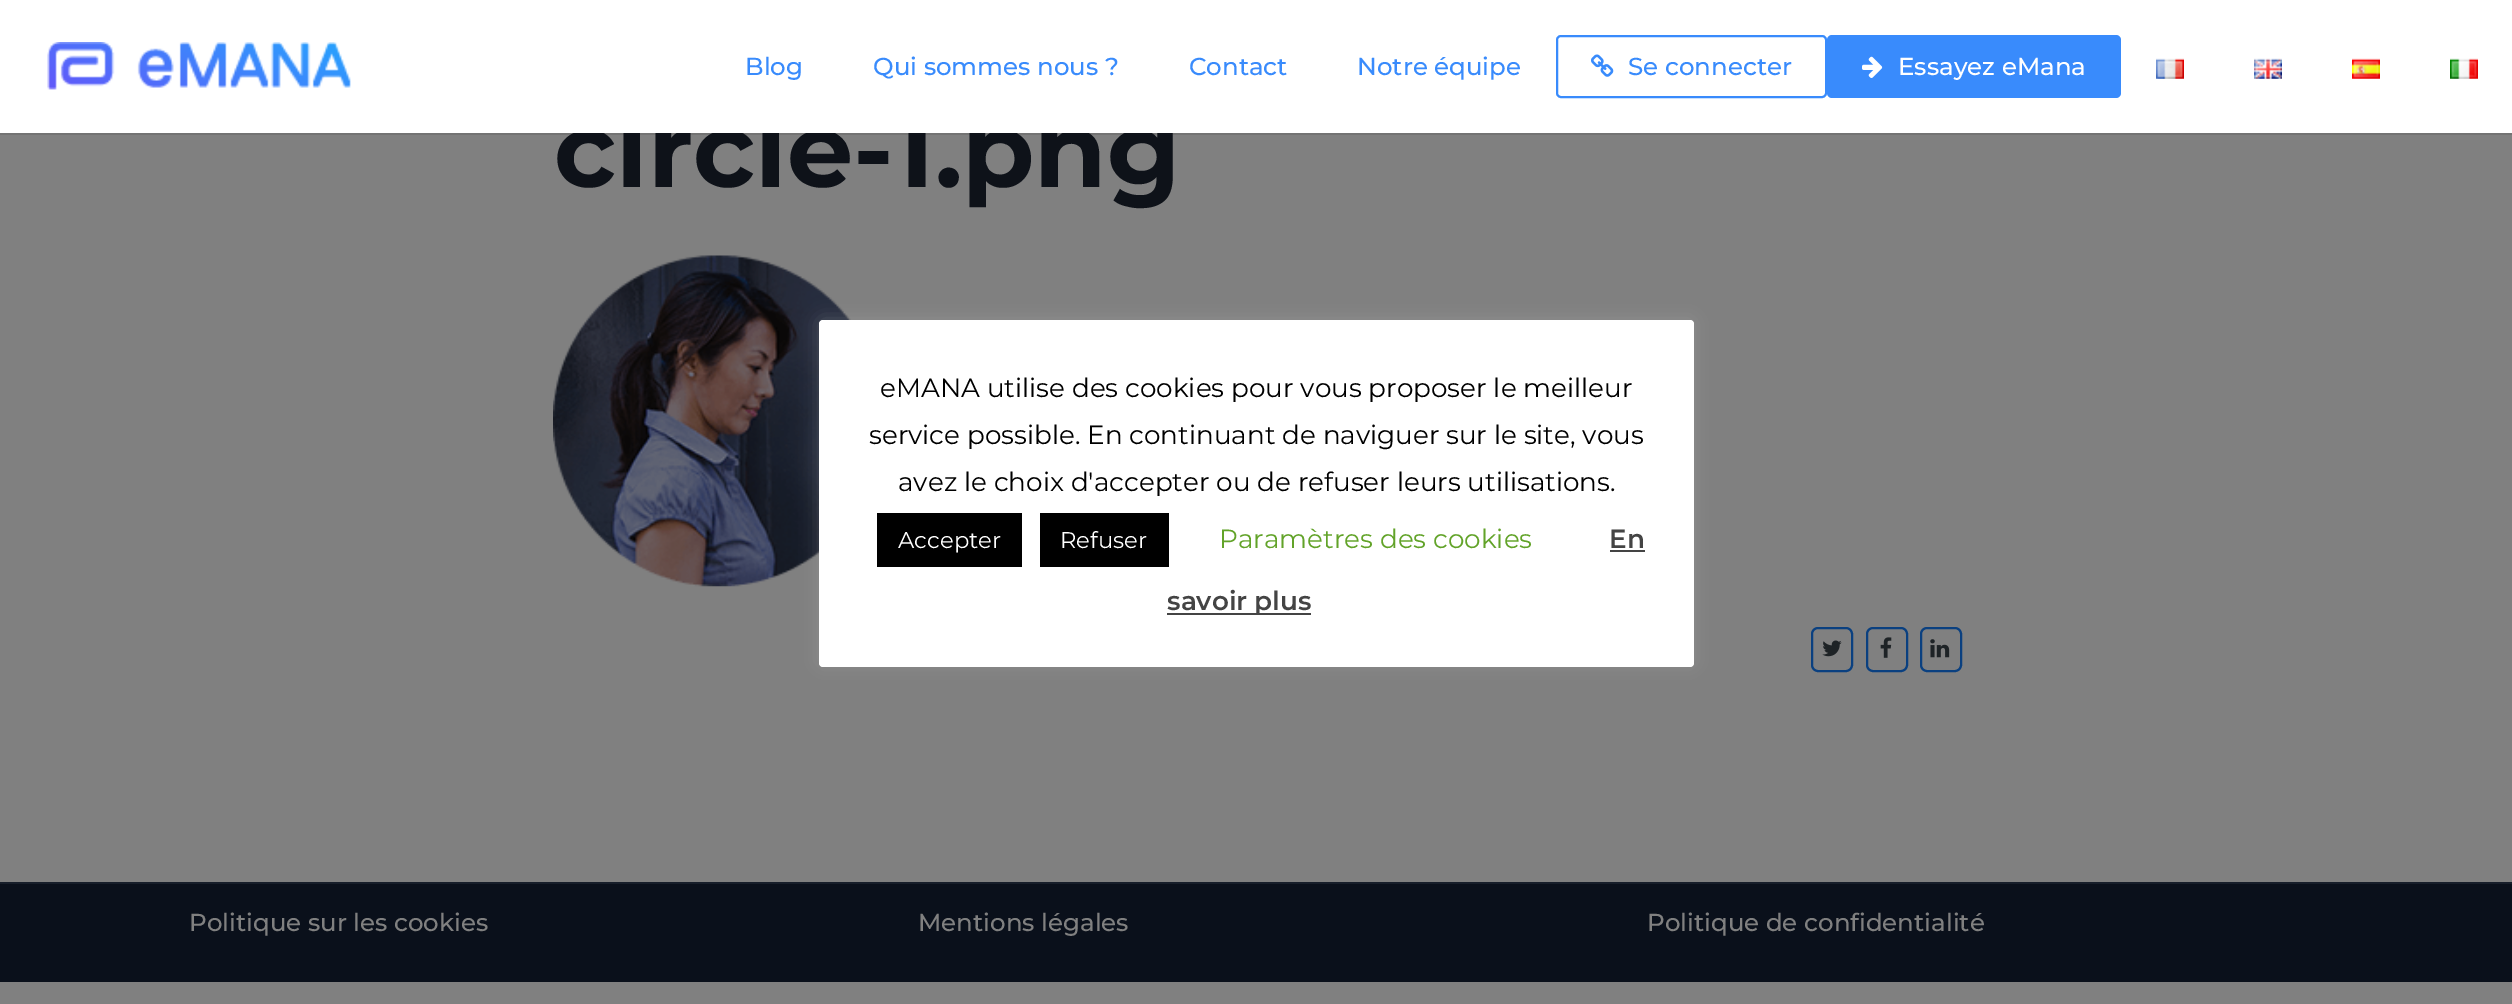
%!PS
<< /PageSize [2512 1004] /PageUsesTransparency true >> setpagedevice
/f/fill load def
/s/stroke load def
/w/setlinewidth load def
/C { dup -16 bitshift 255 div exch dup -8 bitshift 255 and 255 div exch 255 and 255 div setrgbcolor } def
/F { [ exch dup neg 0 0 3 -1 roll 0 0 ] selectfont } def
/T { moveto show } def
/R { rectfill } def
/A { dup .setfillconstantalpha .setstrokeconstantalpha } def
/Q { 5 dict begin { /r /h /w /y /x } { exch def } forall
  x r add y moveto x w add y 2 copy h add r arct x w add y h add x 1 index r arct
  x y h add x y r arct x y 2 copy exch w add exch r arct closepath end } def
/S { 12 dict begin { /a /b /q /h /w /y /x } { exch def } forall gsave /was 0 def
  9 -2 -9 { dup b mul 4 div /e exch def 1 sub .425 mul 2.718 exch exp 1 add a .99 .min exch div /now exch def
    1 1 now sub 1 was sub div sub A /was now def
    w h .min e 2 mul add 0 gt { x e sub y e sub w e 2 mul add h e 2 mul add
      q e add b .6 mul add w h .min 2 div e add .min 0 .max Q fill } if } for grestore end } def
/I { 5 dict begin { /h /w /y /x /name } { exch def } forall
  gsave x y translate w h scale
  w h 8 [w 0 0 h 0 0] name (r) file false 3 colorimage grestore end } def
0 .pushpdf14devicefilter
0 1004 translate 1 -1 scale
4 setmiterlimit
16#808080 C
0 0 2512 1004 R
0.1 A
16#000000 C
0 133 2512 2 R
/Montserrat-Bold 105 F
1 A
16#0E1219 C
(circle-1.png) 554 187 T
16#FFFFFF C
0 0 2512 133 R
(1.rgb) 47 42 304 48 I
/Montserrat-Medium 24.5 F
16#398BFC C
(Blog) 745 75 T
(Qui sommes nous ?) 873 75 T
(Contact) 1189 75 T
(Notre équipe) 1357 75 T
2 w
1557 36 269 61 4 Q s
(2.rgb) 1591 54 23 23 I
(Se connecter) 1628 75 T
1827 35 294 63 5 Q f
(3.rgb) 1862 56 21 22 I
16#FFFFFF C
(Essayez eMana) 1898 75 T
(4.rgb) 2156 58 28 21 I
(5.rgb) 2254 58 28 21 I
(6.rgb) 2352 58 28 21 I
(7.rgb) 2450 58 28 21 I
(8.rgb) 553 255 298 332 I
16#0A4080 C
1812 628 40 43 6 Q s
(9.rgb) 1822 640 20 17 I
1867 628 40 43 6 Q s
(10.rgb) 1880 637 12 21 I
1921 628 40 43 6 Q s
(11.rgb) 1930 639 20 19 I
16#171E2A C
0 882 2512 2 R
16#0A101B C
0 884 2512 98 R
16#808080 C
(Politique sur les cookies) 189 931 T
(Mentions légales) 918 931 T
(Politique de confidentialité) 1647 931 T
16#ACABAB C
819 319 875 346 4 9 .3 S
16#FFFFFF C
819 320 875 347 4 Q f
/Montserrat-Regular 26.25 F
16#000000 C
(eMANA utilise des cookies pour vous proposer le meilleur) 880 397 T
(service possible. En continuant de naviguer sur le site, vous) 869 444 T
(avez le choix d'accepter ou de refuser leurs utilisations.) 898 491 T
877 513 145 54 R
/Montserrat-Regular 22.75 F
16#FFFFFF C
(Accepter) 898 548 T
16#000000 C
1040 513 129 54 R
16#FFFFFF C
(Refuser) 1060 548 T
/Montserrat-Regular 26.25 F
16#62A329 C
(Paramètres des cookies) 1219 548 T
/Montserrat-SemiBold 26.25 F
16#444444 C
(En) 1609 548 T
1610 550 35 2 R
1167 613 144 2 R
(savoir plus) 1167 610 T
.poppdf14devicefilter showpage
